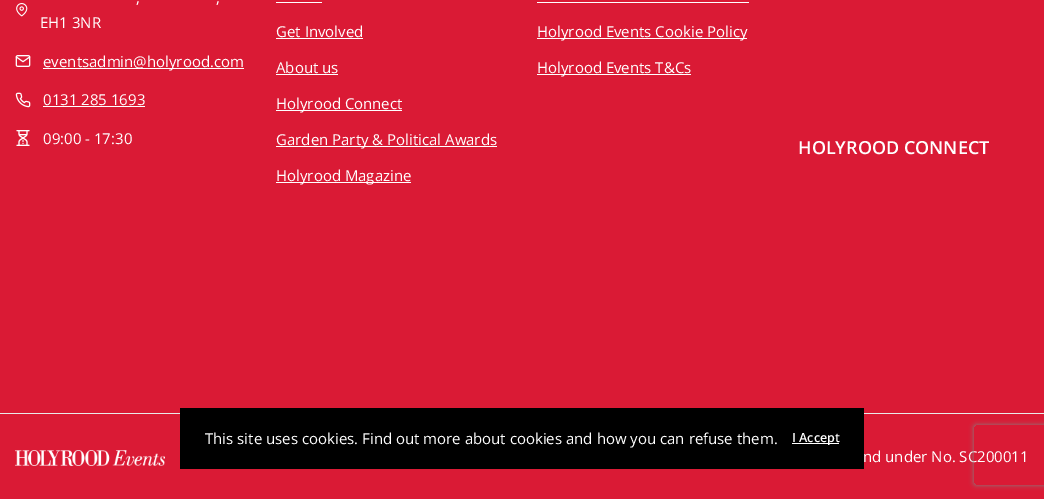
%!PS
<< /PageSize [1044 499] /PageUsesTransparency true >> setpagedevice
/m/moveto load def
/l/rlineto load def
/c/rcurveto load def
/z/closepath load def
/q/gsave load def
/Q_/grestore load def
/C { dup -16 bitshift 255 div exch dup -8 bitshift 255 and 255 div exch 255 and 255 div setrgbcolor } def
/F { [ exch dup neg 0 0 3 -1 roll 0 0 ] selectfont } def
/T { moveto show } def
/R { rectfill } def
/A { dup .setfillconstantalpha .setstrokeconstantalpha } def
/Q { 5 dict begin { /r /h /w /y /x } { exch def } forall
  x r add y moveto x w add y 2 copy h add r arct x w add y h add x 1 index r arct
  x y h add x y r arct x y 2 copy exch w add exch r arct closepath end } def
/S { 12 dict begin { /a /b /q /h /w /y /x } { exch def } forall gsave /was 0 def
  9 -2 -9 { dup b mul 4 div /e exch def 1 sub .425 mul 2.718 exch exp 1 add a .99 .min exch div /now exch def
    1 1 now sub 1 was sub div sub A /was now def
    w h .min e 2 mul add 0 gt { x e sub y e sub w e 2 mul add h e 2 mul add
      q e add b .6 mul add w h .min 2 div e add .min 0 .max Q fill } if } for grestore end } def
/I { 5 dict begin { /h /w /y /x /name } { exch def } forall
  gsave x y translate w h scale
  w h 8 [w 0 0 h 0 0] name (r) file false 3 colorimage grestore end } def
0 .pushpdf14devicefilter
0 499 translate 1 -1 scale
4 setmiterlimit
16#DA1A35 C
0 0 1044 499 R
(1.rgb) 16 3 12 14 I
/OpenSans-Regular 15 F
16#FFFFFF C
(,) 136 3 T
(,) 216 3 T
(EH1 3NR) 40 28 T
(2.rgb) 15 55 16 12 I
43 68 201 1 R
(eventsadmin@holyrood.com) 43 67 T
(3.rgb) 15 92 16 16 I
(0131 285 1693) 43 105 T
43 106 102 1 R
(4.rgb) 16 130 14 16 I
(09:00 - 17:30) 43 144 T
276 2 46 1 R
(Get Involved) 276 37 T
276 38 87 1 R
(About us) 276 73 T
276 74 62 1 R
276 110 126 1 R
(Holyrood Connect) 276 109 T
276 146 221 1 R
(Garden Party & Political Awards) 276 145 T
276 182 135 1 R
(Holyrood Magazine) 276 181 T
537 2 212 1 R
537 38 210 1 R
(Holyrood Events Cookie Policy) 537 37 T
537 74 154 1 R
(Holyrood Events T&Cs) 537 73 T
/OpenSans-SemiBold 18 F
(HOLYROOD CONNECT) 798 154 T
16#EAEAEA C
0 413 1044 1 R
(5.rgb) 15 450 150 16 I
/OpenSans-Regular 15 F
16#FFFFFF C
(nd under No. SC200011) 863 462 T
16#000000 C
180 408 684 61 R
16#FFFFFF C
(This site uses cookies. Find out more about cookies and how you can refuse them.) 205 444 T
792 443 47 1 R
/OpenSans-SemiBold 12.5 F
(I Accept) 792 442 T
q
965 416 m 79 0 l 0 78 l -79 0 l z 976 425 m 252 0 l 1 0 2 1 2 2 c 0 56 l 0 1 -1 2 -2 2 c -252 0 l -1 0 -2 -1 -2 -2 c 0 -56 l 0 -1 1 -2 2 -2 c z eoclip newpath
16#808080 C
974 425 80 60 2 2.5 1 S
Q_
.poppdf14devicefilter showpage
